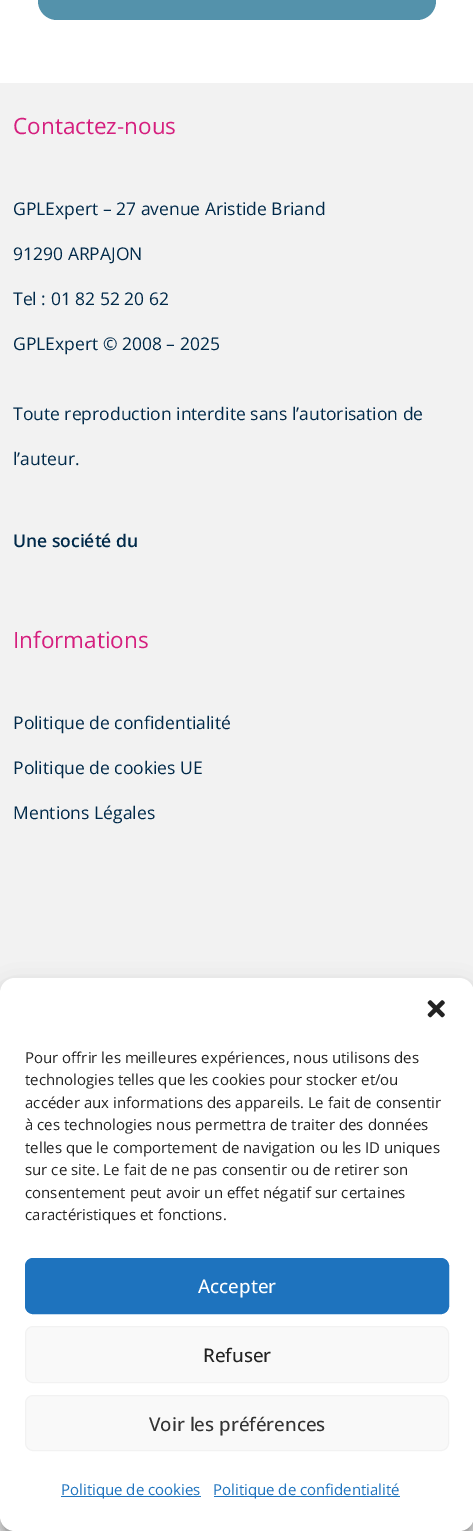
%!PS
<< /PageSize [473 1531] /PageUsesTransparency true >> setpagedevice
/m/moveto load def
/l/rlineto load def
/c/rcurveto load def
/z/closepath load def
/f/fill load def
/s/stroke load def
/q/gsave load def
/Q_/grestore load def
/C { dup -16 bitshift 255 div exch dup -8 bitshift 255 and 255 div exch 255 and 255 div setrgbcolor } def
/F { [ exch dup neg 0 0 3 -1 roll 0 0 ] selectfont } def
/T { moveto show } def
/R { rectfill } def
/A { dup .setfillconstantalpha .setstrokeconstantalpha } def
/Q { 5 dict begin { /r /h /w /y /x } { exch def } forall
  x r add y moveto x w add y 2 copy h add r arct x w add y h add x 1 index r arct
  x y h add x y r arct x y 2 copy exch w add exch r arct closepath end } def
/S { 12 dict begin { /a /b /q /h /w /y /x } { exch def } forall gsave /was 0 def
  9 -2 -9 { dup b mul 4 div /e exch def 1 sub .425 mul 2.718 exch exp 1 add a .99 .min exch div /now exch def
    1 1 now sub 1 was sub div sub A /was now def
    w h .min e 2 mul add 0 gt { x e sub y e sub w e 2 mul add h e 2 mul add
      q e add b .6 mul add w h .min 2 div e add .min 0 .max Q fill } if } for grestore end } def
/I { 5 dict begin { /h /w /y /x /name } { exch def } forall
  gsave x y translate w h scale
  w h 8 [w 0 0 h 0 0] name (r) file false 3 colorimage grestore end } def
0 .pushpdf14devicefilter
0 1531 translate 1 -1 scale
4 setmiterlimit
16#FFFFFF C
0 0 473 1531 R
16#5492AB C
38 -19 m 398 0 l 0 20 l 0 10.5 -8.5 19 -19 19 c -360 0 l -10.5 0 -19 -8.5 -19 -19 c z f
16#F2F2F2 C
0 83 473 1448 R
/OpenSans-Regular 22.5 F
16#D51F7E C
(Contactez-nous) 13 134 T
/OpenSans-Regular 17.5 F
16#002949 C
(GPLExpert – 27 avenue Aristide Briand) 13 215 T
(91290 ARPAJON) 13 260 T
(Tel : 01 82 52 20 62) 13 305 T
(GPLExpert © 2008 – 2025) 13 350 T
(Toute reproduction interdite sans l’autorisation de) 13 420 T
(l’auteur.) 13 465 T
/OpenSans-SemiBold 17.5 F
(Une société du) 13 547 T
/OpenSans-Regular 22.5 F
16#D51F7E C
(Informations) 13 648 T
/OpenSans-Regular 17.5 F
16#002949 C
(Politique de confidentialité) 13 729 T
(Politique de cookies UE) 13 774 T
(Mentions Légales) 13 819 T
16#000000 C
0 985 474 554 15 4 .23 S
0 990 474 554 15 12.5 .19 S
16#FFFFFF C
0 978 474 553 15 Q f
(1.rgb) 427 1000 18 18 I
/OpenSans-Regular 15 F
16#222222 C
(Pour offrir les meilleures expériences, nous utilisons des) 25 1063 T
(technologies telles que les cookies pour stocker et/ou) 25 1085 T
(accéder aux informations des appareils. Le fait de consentir) 25 1108 T
(à ces technologies nous permettra de traiter des données) 25 1130 T
(telles que le comportement de navigation ou les ID uniques) 25 1153 T
(sur ce site. Le fait de ne pas consentir ou de retirer son) 25 1175 T
(consentement peut avoir un effet négatif sur certaines) 25 1198 T
(caractéristiques et fonctions.) 25 1220 T
16#1E73BE C
25.5 1258.5 423 55 7.5 Q q f Q_
s
/OpenSans-Medium 18.75 F
16#FFFFFF C
(Accepter) 198 1293 T
16#F9F9F9 C
25.5 1326.5 423 56 7.5 Q q f Q_
16#F2F2F2 C
s
16#222222 C
(Refuser) 203 1362 T
16#F9F9F9 C
25.5 1395.5 423 55 7.5 Q q f Q_
16#F2F2F2 C
s
16#333333 C
(Voir les préférences) 149 1431 T
16#1E73BE C
61 1496 140 1 R
/OpenSans-Regular 15 F
(Politique de cookies) 61 1495 T
214 1496 186 1 R
(Politique de confidentialité) 213 1495 T
.poppdf14devicefilter showpage
